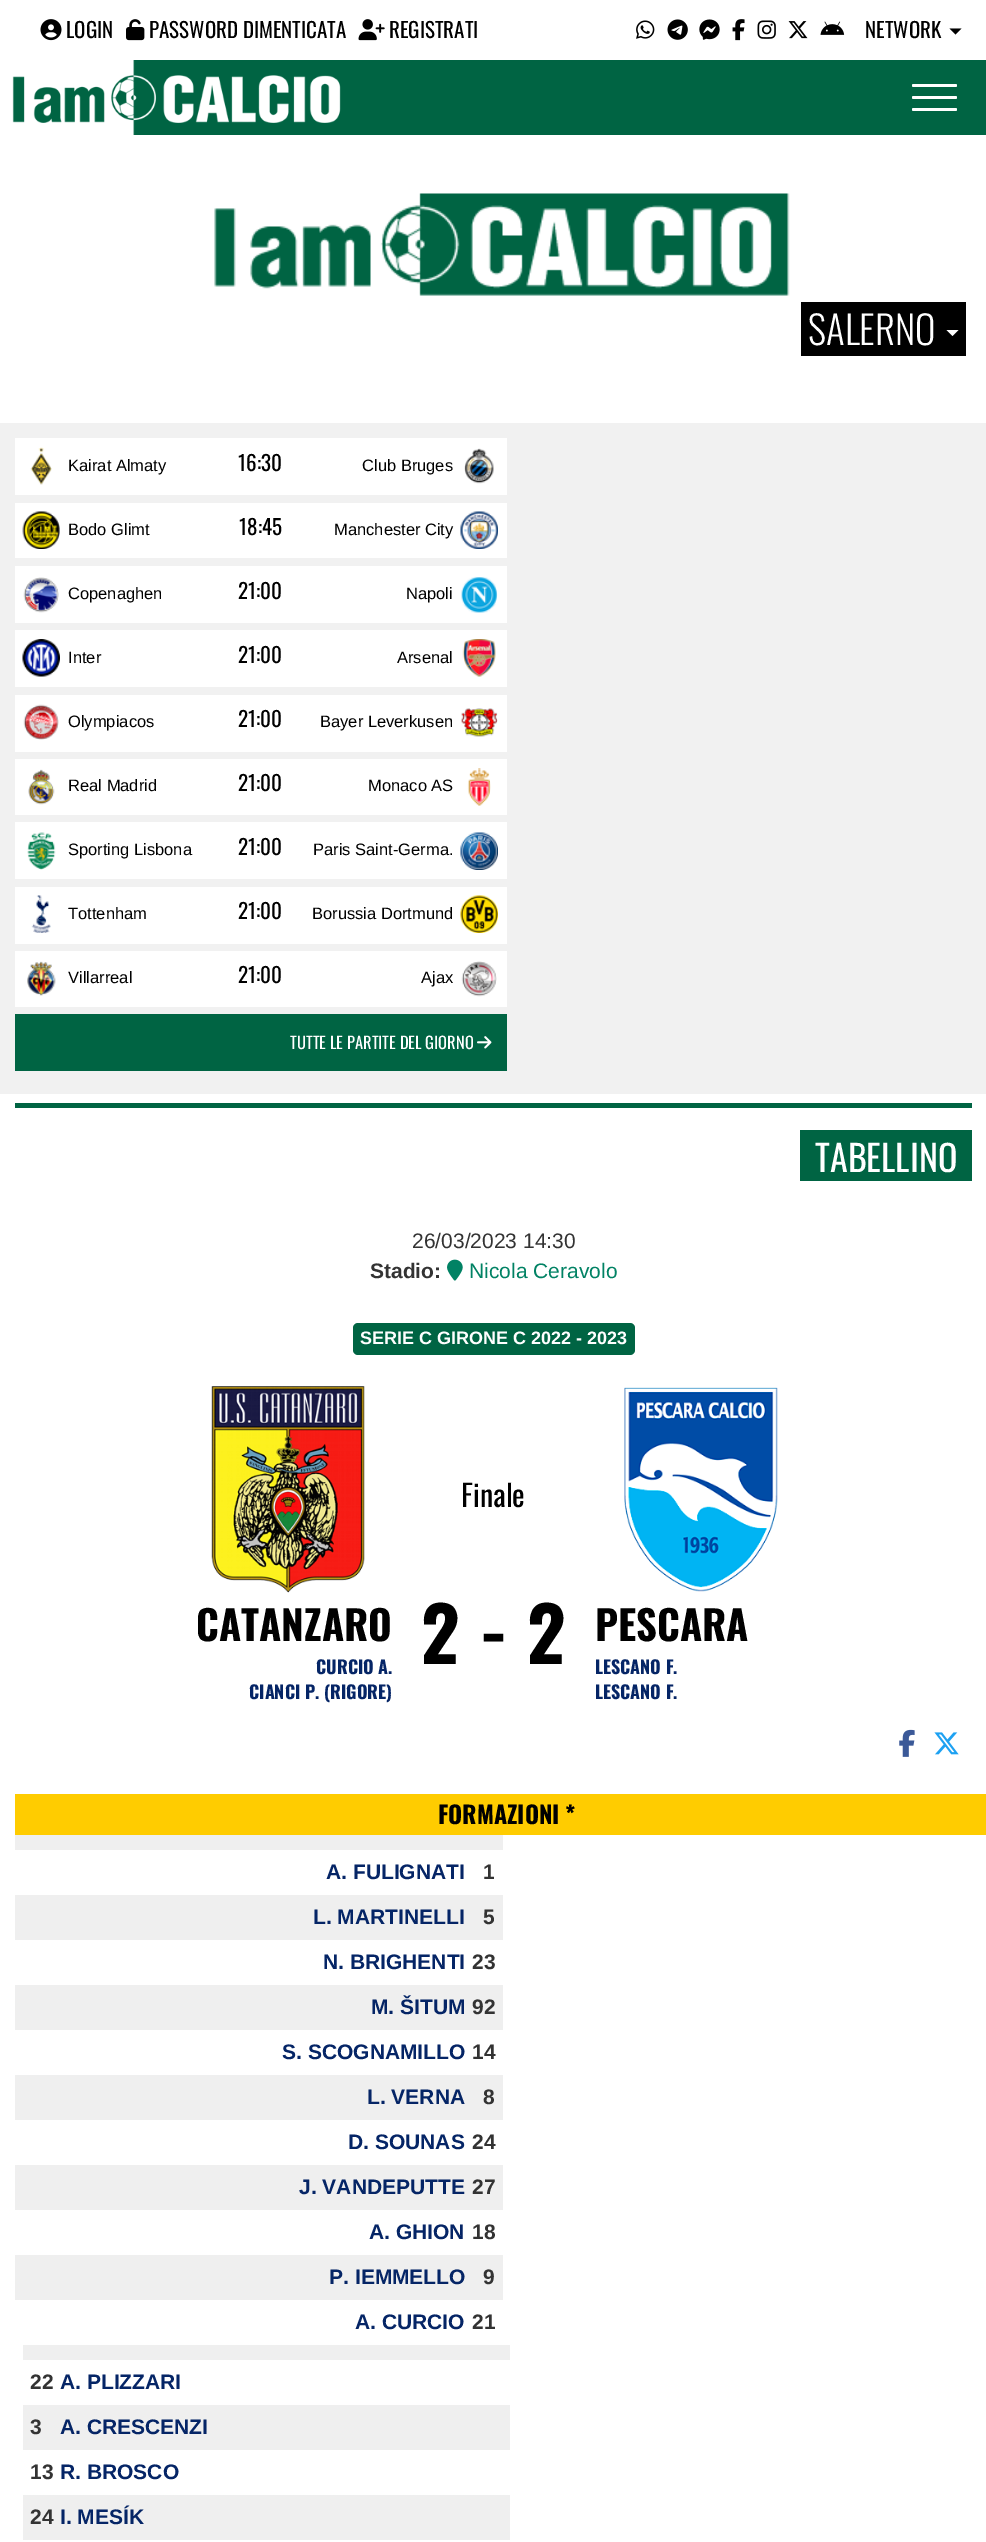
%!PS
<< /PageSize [986 2542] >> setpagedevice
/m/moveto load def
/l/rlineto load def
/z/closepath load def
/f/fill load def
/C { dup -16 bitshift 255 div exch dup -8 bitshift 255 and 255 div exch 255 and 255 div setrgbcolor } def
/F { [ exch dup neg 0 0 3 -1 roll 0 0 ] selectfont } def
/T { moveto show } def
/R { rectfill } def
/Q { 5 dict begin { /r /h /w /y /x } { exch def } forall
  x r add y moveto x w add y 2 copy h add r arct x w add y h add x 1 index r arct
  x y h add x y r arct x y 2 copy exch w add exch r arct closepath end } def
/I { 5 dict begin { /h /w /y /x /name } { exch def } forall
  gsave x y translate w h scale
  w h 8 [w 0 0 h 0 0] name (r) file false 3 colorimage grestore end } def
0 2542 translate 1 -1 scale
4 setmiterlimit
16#FFFFFF C
0 0 986 2542 R
(1.rgb) 40 19 22 22 I
/Oswald-Regular 21 F
16#000000 C
(LOGIN) 66 38 T
(2.rgb) 126 19 19 22 I
(PASSWORD DIMENTICATA) 149 38 T
(3.rgb) 358 19 27 22 I
(REGISTRATI) 389 38 T
(4.rgb) 636 20 19 19 I
(5.rgb) 667 19 21 21 I
(6.rgb) 699 19 21 21 I
(7.rgb) 732 19 13 22 I
(8.rgb) 757 20 19 19 I
(9.rgb) 788 21 20 18 I
(10.rgb) 820 21 25 14 I
(NETWORK) 865 38 T
949.5 28.5 m 12 0 l -6 6 l z f
16#006443 C
12 60 974 75 R
(11.rgb) 0 60 341 75 I
16#FFFFFF C
912 84 45 3 1.5 Q f
912 96 45 3 1.5 Q f
912 108 45 3 1.5 Q f
(12.rgb) 214 193 576 103 I
16#000000 C
801 302 165 54 R
/Oswald-Light 39 F
16#FFFFFF C
(SALERNO) 808 345 T
946.5 330 m 12 0 l -6 6 l z f
16#F1F1F1 C
0 423 986 671 R
16#FFFFFF C
15 438 492 57 R
(13.rgb) 30 447 22 38 I
/LiberationSans-Regular 16.5 F
16#000000 C
(Kairat Almaty) 68 471 T
/Oswald-Regular 21 F
(16:30) 238 471 T
(14.rgb) 464 448 30 36 I
/LiberationSans-Regular 16.5 F
(Club Bruges) 362 471 T
16#FFFFFF C
15 503 492 55 R
(15.rgb) 22 511 38 38 I
16#000000 C
(Bodo Glimt) 68 535 T
/Oswald-Regular 21 F
(18:45) 239 535 T
(16.rgb) 460 511 38 38 I
/LiberationSans-Regular 16.5 F
(Manchester City) 334 535 T
16#FFFFFF C
15 566 492 57 R
(17.rgb) 23 577 36 36 I
16#000000 C
(Copenaghen) 68 599 T
/Oswald-Regular 21 F
(21:00) 238 599 T
(18.rgb) 461 576 37 37 I
/LiberationSans-Regular 16.5 F
(Napoli) 406 599 T
16#FFFFFF C
15 630 492 57 R
(19.rgb) 22 639 38 38 I
16#000000 C
(Inter) 68 663 T
/Oswald-Regular 21 F
(21:00) 238 663 T
(20.rgb) 462 639 34 38 I
/LiberationSans-Regular 16.5 F
(Arsenal) 397 663 T
16#FFFFFF C
15 695 492 57 R
(21.rgb) 23 704 36 36 I
16#000000 C
(Olympiacos) 68 727 T
/Oswald-Regular 21 F
(21:00) 238 727 T
(22.rgb) 461 708 37 29 I
/LiberationSans-Regular 16.5 F
(Bayer Leverkusen) 320 727 T
16#FFFFFF C
15 759 492 56 R
(23.rgb) 28 769 27 36 I
16#000000 C
(Real Madrid) 68 791 T
/Oswald-Regular 21 F
(21:00) 238 791 T
(24.rgb) 467 768 24 38 I
/LiberationSans-Regular 16.5 F
(Monaco AS) 368 791 T
16#FFFFFF C
15 822 492 57 R
(25.rgb) 27 832 29 38 I
16#000000 C
(Sporting Lisbona) 68 855 T
/Oswald-Regular 21 F
(21:00) 238 855 T
(26.rgb) 460 832 38 38 I
/LiberationSans-Regular 16.5 F
(Paris Saint-Germa.) 313 855 T
16#FFFFFF C
15 887 492 57 R
(27.rgb) 31 895 20 38 I
16#000000 C
(Tottenham) 68 919 T
/Oswald-Regular 21 F
(21:00) 238 919 T
(28.rgb) 460 895 38 38 I
/LiberationSans-Regular 16.5 F
(Borussia Dortmund) 312 919 T
16#FFFFFF C
15 951 492 56 R
(29.rgb) 27 961 29 35 I
16#000000 C
(Villarreal) 68 983 T
/Oswald-Regular 21 F
(21:00) 238 983 T
(30.rgb) 461 961 36 36 I
/LiberationSans-Regular 16.5 F
(Ajax) 421 983 T
16#006443 C
15 1014 492 57 R
/Oswald-Regular 16.5 F
16#FFFFFF C
(TUTTE LE PARTITE DEL GIORNO) 290 1049 T
(31.rgb) 477 1036 15 13 I
16#006443 C
15 1103 957 5 R
800 1130 172 51 R
/Oswald-Regular 36 F
16#FFFFFF C
(TABELLINO) 815 1172 T
/LiberationSans-Regular 21 F
16#333333 C
(26/03/2023 14:30) 412 1248 T
/LiberationSans-Bold 21 F
(Stadio:) 370 1278 T
(32.rgb) 447 1259 16 22 I
/LiberationSans-Regular 21 F
16#018264 C
(Nicola Ceravolo) 469 1278 T
16#006443 C
353 1323 282 32 5 Q f
/LiberationSans-Bold 18 F
16#FFFFFF C
(SERIE C GIRONE C 2022 - 2023) 360 1344 T
(33.rgb) 211 1386 154 207 I
/Oswald-Regular 30 F
16#000000 C
(Finale) 461 1507 T
(34.rgb) 624 1387 154 205 I
/Oswald-Bold 40.5 F
(CATANZARO) 196 1641 T
/Oswald-Bold 18 F
16#052566 C
(CURCIO A.) 316 1674 T
(CIANCI P. \(RIGORE\)) 249 1699 T
/Oswald-Bold 75 F
16#000000 C
(2 - 2) 421 1664 T
/Oswald-Bold 40.5 F
(PESCARA) 595 1641 T
/Oswald-Bold 18 F
16#052566 C
(LESCANO F.) 595 1674 T
(LESCANO F.) 595 1699 T
(35.rgb) 899 1729 16 28 I
(36.rgb) 934 1732 25 23 I
16#FFCC00 C
15 1794 971 41 R
/Oswald-Bold 24 F
16#000000 C
(FORMAZIONI *) 438 1824 T
16#EFEFEF C
15 1835 488 15 R
/LiberationSans-Bold 21 F
16#052566 C
(A. FULIGNATI) 326 1879 T
16#333333 C
(1) 483 1879 T
16#EFEFEF C
15 1895 488 45 R
16#052566 C
(L. MARTINELLI) 313 1924 T
16#333333 C
(5) 483 1924 T
16#052566 C
(N. BRIGHENTI) 323 1969 T
16#333333 C
(23) 472 1969 T
16#EFEFEF C
15 1985 488 45 R
16#052566 C
(M. ŠITUM) 371 2014 T
16#333333 C
(92) 472 2014 T
16#052566 C
(S. SCOGNAMILLO) 282 2059 T
16#333333 C
(14) 472 2059 T
16#EFEFEF C
15 2075 488 45 R
16#052566 C
(L. VERNA) 367 2104 T
16#333333 C
(8) 483 2104 T
16#052566 C
(D. SOUNAS) 348 2149 T
16#333333 C
(24) 472 2149 T
16#EFEFEF C
15 2165 488 45 R
16#052566 C
(J. VANDEPUTTE) 299 2194 T
16#333333 C
(27) 472 2194 T
16#052566 C
(A. GHION) 369 2239 T
16#333333 C
(18) 472 2239 T
16#EFEFEF C
15 2255 488 45 R
16#052566 C
(P. IEMMELLO) 329 2284 T
16#333333 C
(9) 483 2284 T
16#052566 C
(A. CURCIO) 355 2329 T
16#333333 C
(21) 472 2329 T
16#EFEFEF C
23 2345 487 15 R
16#333333 C
(22) 30 2389 T
16#052566 C
(A. PLIZZARI) 60 2389 T
16#EFEFEF C
23 2405 487 45 R
16#333333 C
(3) 30 2434 T
16#052566 C
(A. CRESCENZI) 60 2434 T
16#333333 C
(13) 30 2479 T
16#052566 C
(R. BROSCO) 60 2479 T
16#EFEFEF C
23 2495 487 45 R
16#333333 C
(24) 30 2524 T
16#052566 C
(I. MESÍK) 60 2524 T
showpage
